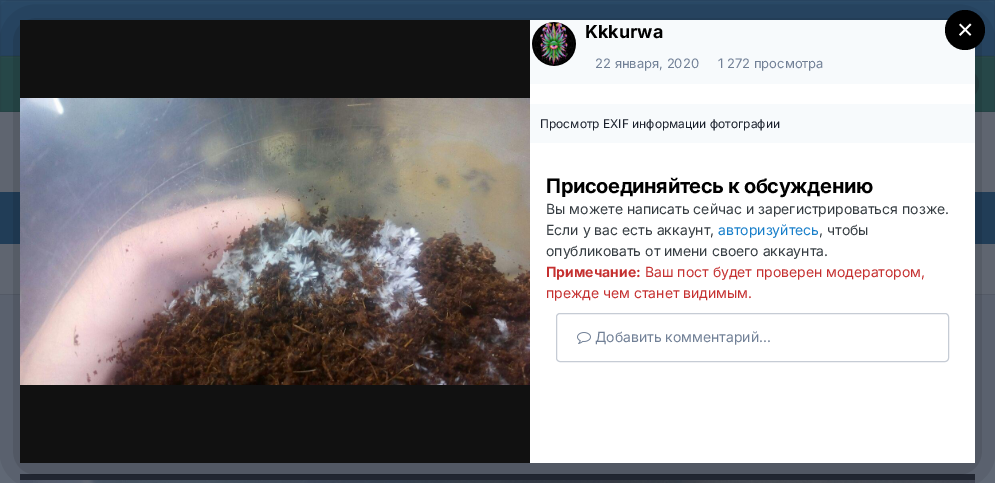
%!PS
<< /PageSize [995 483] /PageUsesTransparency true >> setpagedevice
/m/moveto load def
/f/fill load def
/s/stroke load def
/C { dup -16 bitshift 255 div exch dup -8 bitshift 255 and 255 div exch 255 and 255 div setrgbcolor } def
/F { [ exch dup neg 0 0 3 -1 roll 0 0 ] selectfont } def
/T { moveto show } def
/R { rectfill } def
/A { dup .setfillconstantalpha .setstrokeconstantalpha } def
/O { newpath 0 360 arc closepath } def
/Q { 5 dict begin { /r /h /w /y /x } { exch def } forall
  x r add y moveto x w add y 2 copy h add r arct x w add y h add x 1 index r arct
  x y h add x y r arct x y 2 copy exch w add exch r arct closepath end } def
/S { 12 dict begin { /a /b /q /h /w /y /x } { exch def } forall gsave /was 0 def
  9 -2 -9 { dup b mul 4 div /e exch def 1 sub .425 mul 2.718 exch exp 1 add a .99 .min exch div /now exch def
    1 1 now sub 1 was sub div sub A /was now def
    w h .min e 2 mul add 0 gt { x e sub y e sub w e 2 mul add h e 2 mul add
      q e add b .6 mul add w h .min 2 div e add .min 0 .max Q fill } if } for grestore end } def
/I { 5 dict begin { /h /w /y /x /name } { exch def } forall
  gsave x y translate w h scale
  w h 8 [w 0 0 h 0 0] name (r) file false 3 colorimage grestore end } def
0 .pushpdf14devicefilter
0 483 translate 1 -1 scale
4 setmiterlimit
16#676F7C C
0 0 995 483 R
16#5F6774 C
0 294 995 1 R
16#2C4D6C C
1 2 993 53 R
16#32516E C
1 1 993 1 R
16#2B4966 C
.5 .5 994 55 rectstroke
16#2D5152 C
1 58 993 53 R
16#335456 C
1 57 993 1 R
16#2C4C4F C
.5 56.5 994 55 rectstroke
16#294449 C
964 84 15 O f
16#6C737F C
0 112 995 80 R
16#254563 C
0 192 995 52 R
16#6C737F C
0 244 995 50 R
16#252C38 C
20 474 955 6 R
(4.rgb) 20 480 955 3 I
16#000000 C
20 25 955 443 0 27.5 .4 S
16#111111 C
20 20 510 443 R
(1.rgb) 20 98 510 287 I
16#FFFFFF C
530 84 445 379 R
16#F7FAFC C
530 20 445 64 R
16#FFFFFF C
554 44 22 O f
(2.rgb) 532 22 44 44 I
/Inter-Bold 18 F
16#000000 C
(Kkkurwa) 585 38 T
/Inter-Regular 13 F
16#718096 C
(22 января, 2020) 595 68 T
(1 272 просмотра) 718 68 T
16#F7FAFC C
530 104 445 39 R
/Inter-Regular 12 F
16#1A202C C
(Просмотр EXIF информации фотографии) 540 128 T
/Inter-Bold 20 F
16#000000 C
546 193 m -.4 0 (Присоединяйтесь к обсуждению) ashow
/Inter-Regular 14 F
16#353C41 C
(Вы можете написать сейчас и зарегистрироваться позже.) 546 214 T
(Если у вас есть аккаунт,) 546 235 T
16#177EC9 C
(авторизуйтесь) 718 235 T
16#353C41 C
(, чтобы) 819 235 T
(опубликовать от имени своего аккаунта.) 546 256 T
/Inter-Bold 14 F
16#C53030 C
(Примечание:) 546 277 T
/Inter-Regular 14 F
(Ваш пост будет проверен модератором,) 645 277 T
(прежде чем станет видимым.) 546 298 T
16#C6CCD5 C
556.5 313.5 392 48 3.5 Q s
(3.rgb) 577 332 14 12 I
16#718096 C
(Добавить комментарий...) 595 342 T
16#000000 C
965 30 20 O f
/LiberationSans-Regular 28 F
16#FFFFFF C
(×) 957 39 T
.poppdf14devicefilter showpage
